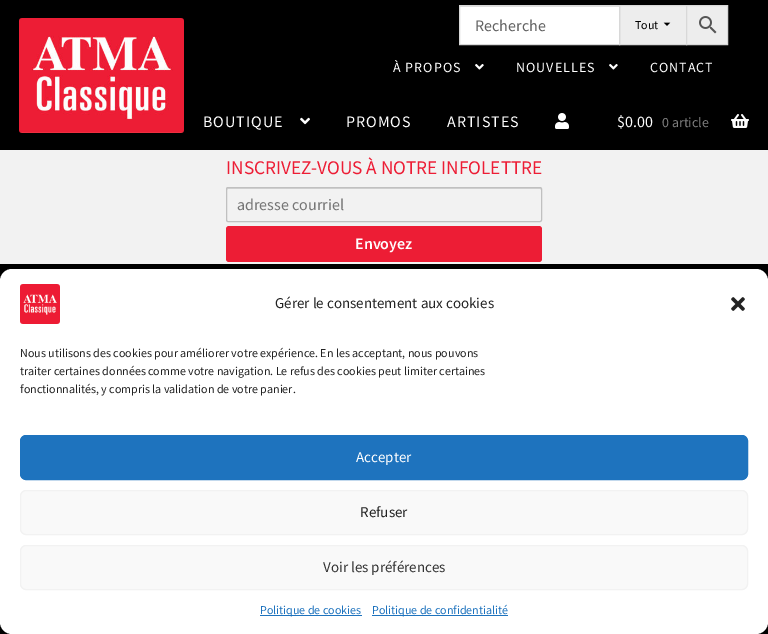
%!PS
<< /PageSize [768 634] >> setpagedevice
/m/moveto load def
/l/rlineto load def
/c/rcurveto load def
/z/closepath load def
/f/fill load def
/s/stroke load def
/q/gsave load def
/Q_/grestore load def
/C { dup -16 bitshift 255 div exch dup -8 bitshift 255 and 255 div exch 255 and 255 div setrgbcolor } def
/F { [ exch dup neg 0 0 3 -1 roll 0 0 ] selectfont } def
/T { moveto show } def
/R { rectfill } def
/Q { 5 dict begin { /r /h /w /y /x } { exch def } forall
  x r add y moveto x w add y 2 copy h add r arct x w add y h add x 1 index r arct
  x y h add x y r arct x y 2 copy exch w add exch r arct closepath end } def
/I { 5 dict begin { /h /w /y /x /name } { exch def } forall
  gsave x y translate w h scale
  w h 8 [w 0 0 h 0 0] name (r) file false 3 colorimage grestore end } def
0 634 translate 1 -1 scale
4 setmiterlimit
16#000000 C
0 0 768 634 R
(1.rgb) 19 18 165 115 I
16#FFFFFF C
460 7 159 37 R
16#DFDFDF C
460 6 159 1 R
16#EDEDED C
619.5 5.5 m 67 0 l 0 39 l -67 0 l z q f Q_
16#D8D8D8 C
s
459.5 5.5 160 39 rectstroke
/SourceSansPro-Regular 16 F
16#616161 C
(Recherche) 475 31 T
/SourceSansPro-Regular 12 F
16#000000 C
(Tout) 635 29 T
(2.rgb) 663 22 8 4 I
16#EDEDED C
686.5 5.5 m 41 0 l 0 39 l -41 0 l z q f Q_
16#D8D8D8 C
s
(3.rgb) 699 16 18 18 I
/SourceSansPro-Regular 16 F
16#FFFFFF C
203 127 m 1 0 (BOUTIQUE) ashow
(4.rgb) 300 117 10 8 I
346 127 m 1 0 (PROMOS) ashow
447 127 m 1 0 (ARTISTES) ashow
(5.rgb) 555 113 14 16 I
($0.00) 617 127 T
/SourceSansPro-Regular 14 F
16#808080 C
(0 article) 662 127 T
(6.rgb) 731 114 18 14 I
16#FFFFFF C
393 72 m 1 0 (À PROPOS) ashow
(7.rgb) 475 64 9 6 I
516 72 m 1 0 (NOUVELLES) ashow
(7.rgb) 609 64 9 6 I
650 72 m 1 0 (CONTACT) ashow
16#F2F2F2 C
0 150 768 114 R
/SourceSansPro-Regular 19.25 F
16#ED1D35 C
(INSCRIVEZ-VOUS À NOTRE INFOLETTRE) 226 174 T
16#D4D4D4 C
228 189 m 312 0 l 1 0 1 0 1 1 c 0 -1 0 -2 -1 -2 c -312 0 l -1 0 l 0 2 l 0 -1 0 -1 1 -1 c z f
16#C0C0C0 C
226.5 187.5 315 34 1.5 Q s
/SourceSansPro-Regular 16 F
16#757575 C
(adresse courriel) 237 210 T
16#ED1D35 C
226 226 316 36 3 Q f
/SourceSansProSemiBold-SemiBold 16 F
16#FFFFFF C
(Envoyez) 355 249 T
0 269 768 365 12 Q f
(8.rgb) 20 284 40 40 I
/SourceSansPro-Regular 15 F
16#222222 C
(Gérer le consentement aux cookies) 275 308 T
(9.rgb) 731 297 14 14 I
/SourceSansPro-Regular 12 F
(Nous utilisons des cookies pour améliorer votre expérience. En les acceptant, nous pouvons) 20 357 T
(traiter certaines données comme votre navigation. Le refus des cookies peut limiter certaines) 20 375 T
(fonctionnalités, y compris la validation de votre panier.) 20 393 T
16#1E73BE C
20.5 435.5 727 44 5.5 Q q f Q_
s
/SourceSansPro-Regular 15 F
16#FFFFFF C
(Accepter) 356 462 T
16#F9F9F9 C
20.5 490.5 727 44 5.5 Q q f Q_
16#F2F2F2 C
s
16#222222 C
(Refuser) 360 517 T
16#F9F9F9 C
20.5 545.5 727 44 5.5 Q q f Q_
16#F2F2F2 C
s
16#333333 C
(Voir les préférences) 323 572 T
16#1E73BE C
260 615 102 1 R
/SourceSansPro-Regular 12 F
(Politique de cookies) 260 614 T
372 615 136 1 R
(Politique de confidentialité) 372 614 T
showpage
